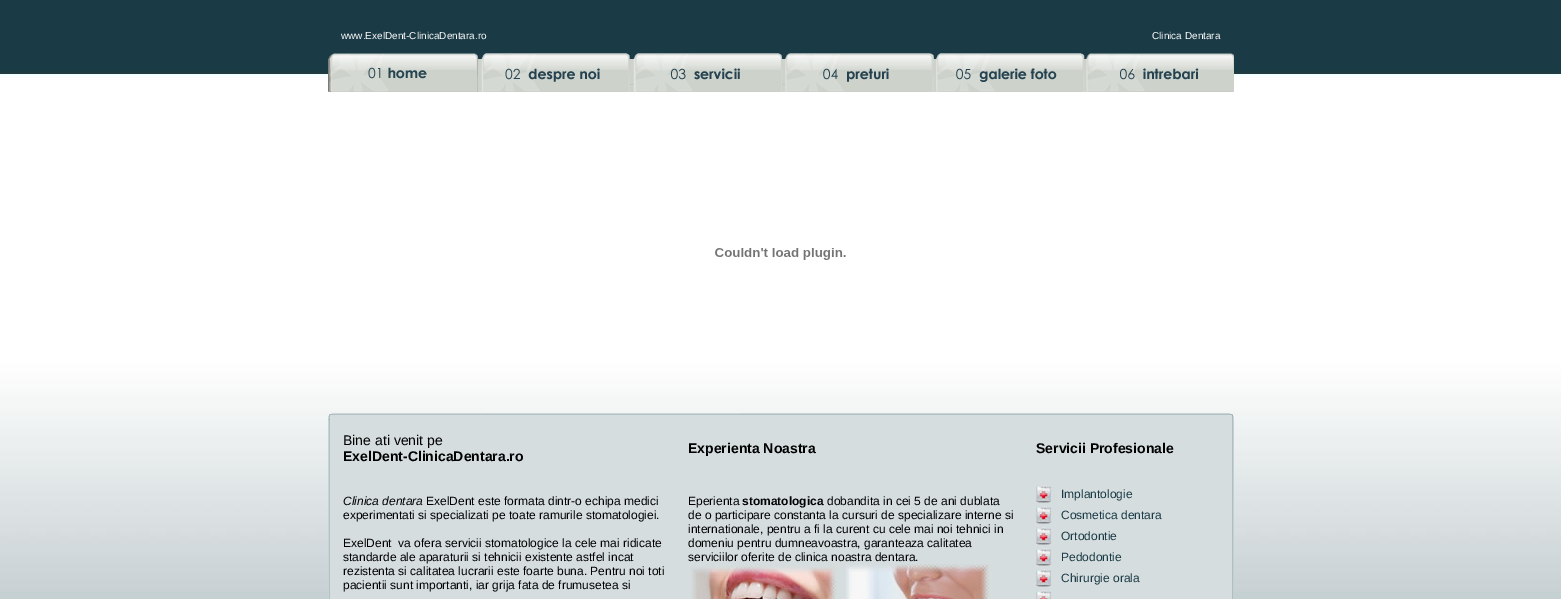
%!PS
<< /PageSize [1561 599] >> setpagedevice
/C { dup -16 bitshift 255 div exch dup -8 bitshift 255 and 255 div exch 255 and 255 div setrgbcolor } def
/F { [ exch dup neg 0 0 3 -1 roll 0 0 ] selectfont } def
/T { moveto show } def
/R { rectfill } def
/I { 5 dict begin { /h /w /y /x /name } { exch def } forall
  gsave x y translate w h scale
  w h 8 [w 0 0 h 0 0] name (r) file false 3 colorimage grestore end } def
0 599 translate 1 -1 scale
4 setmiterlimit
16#FFFFFF C
0 0 1561 599 R
(1.rgb) 0 0 1561 599 I
/LiberationSans-Regular 10 F
(www.ExelDent-ClinicaDentara.ro) 341 39 T
(Clinica Dentara) 1152 39 T
(2.rgb) 328 53 152 39 I
(3.rgb) 480 52 152 40 I
(4.rgb) 632 53 150 39 I
(5.rgb) 782 53 151 39 I
(6.rgb) 933 52 153 40 I
(7.rgb) 1086 53 148 39 I
(8.rgb) 715 248 131 12 I
(9.rgb) 328 413 906 186 I
/LiberationSans-Regular 14 F
16#000000 C
(Bine ati venit pe) 343 445 T
/LiberationSans-Bold 14 F
(ExelDent-ClinicaDentara.ro) 343 461 T
/LiberationSans-Italic 12 F
(Clinica dentara) 343 505 T
/LiberationSans-Regular 12 F
(ExelDent este formata dintr-o echipa medici) 426 505 T
(experimentati si specializati pe toate ramurile stomatologiei.) 343 519 T
(ExelDent  va ofera servicii stomatologice la cele mai ridicate) 343 547 T
(standarde ale aparaturii si tehnicii existente astfel incat) 343 561 T
(rezistenta si calitatea lucrarii este foarte buna. Pentru noi toti) 343 575 T
(pacientii sunt importanti, iar grija fata de frumusetea si) 343 589 T
/LiberationSans-Bold 14 F
(Experienta Noastra) 688 453 T
/LiberationSans-Regular 12 F
(Eperienta) 688 505 T
/LiberationSans-Bold 12 F
(stomatologica) 742 505 T
/LiberationSans-Regular 12 F
(dobandita in cei 5 de ani dublata) 827 505 T
(de o participare constanta la cursuri de specializare interne si) 688 519 T
(internationale, pentru a fi la curent cu cele mai noi tehnici in) 688 533 T
(domeniu pentru dumneavoastra, garanteaza calitatea) 688 547 T
(serviciilor oferite de clinica noastra dentara.) 688 561 T
(10.rgb) 691 564 146 35 I
(11.rgb) 845 564 146 35 I
/LiberationSans-Bold 14 F
(Servicii Profesionale) 1036 453 T
(12.rgb) 1036 485 16 18 I
/LiberationSans-Regular 12 F
16#1A3A45 C
(Implantologie) 1061 498 T
(12.rgb) 1036 506 16 18 I
(Cosmetica dentara) 1061 519 T
(12.rgb) 1036 527 16 18 I
(Ortodontie) 1061 540 T
(12.rgb) 1036 548 16 18 I
(Pedodontie) 1061 561 T
(12.rgb) 1036 569 16 18 I
(Chirurgie orala) 1061 582 T
(13.rgb) 1036 590 16 9 I
showpage
